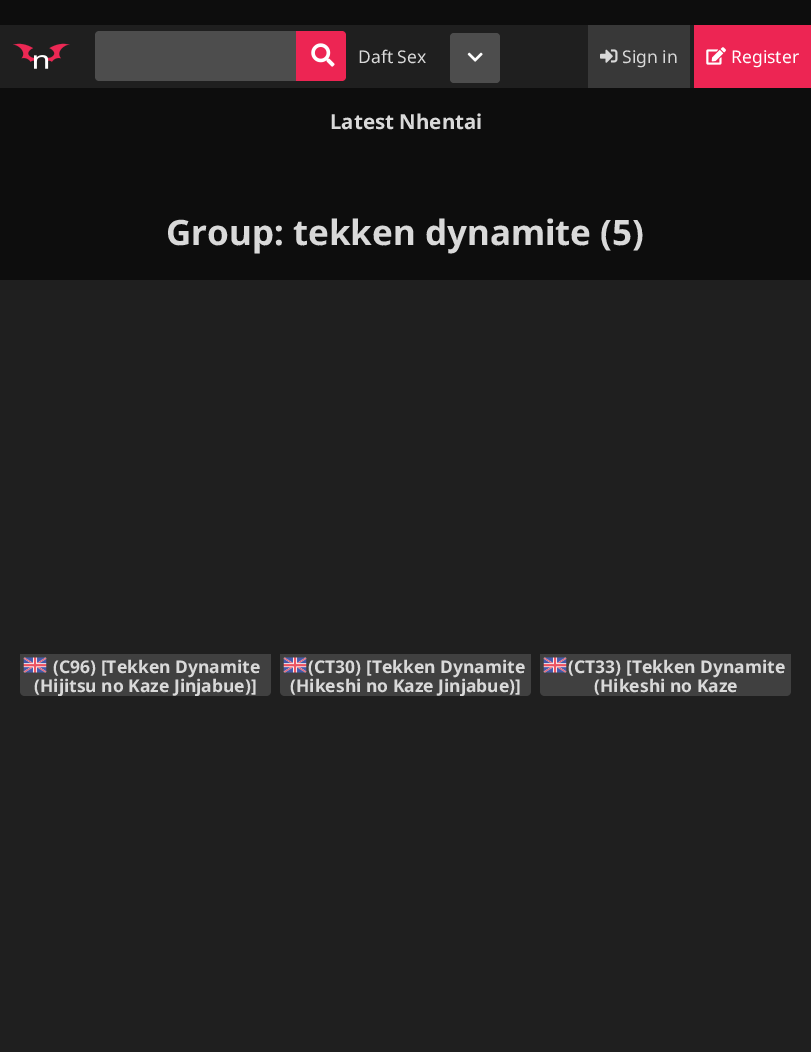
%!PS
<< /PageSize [811 1052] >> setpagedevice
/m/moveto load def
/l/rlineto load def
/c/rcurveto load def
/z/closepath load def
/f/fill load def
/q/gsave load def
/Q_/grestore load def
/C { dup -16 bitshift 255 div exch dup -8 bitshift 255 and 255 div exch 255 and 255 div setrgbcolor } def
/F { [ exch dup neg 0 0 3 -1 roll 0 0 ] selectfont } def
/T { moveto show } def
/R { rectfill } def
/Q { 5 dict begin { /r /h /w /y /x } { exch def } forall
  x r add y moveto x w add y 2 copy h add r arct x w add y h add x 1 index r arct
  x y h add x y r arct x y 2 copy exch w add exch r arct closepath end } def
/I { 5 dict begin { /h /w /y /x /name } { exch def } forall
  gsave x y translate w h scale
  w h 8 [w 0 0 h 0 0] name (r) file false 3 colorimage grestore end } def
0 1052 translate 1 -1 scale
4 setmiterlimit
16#0D0D0D C
0 0 811 1052 R
16#1F1F1F C
0 25 694 63 R
(1.rgb) 13 43 57 26 I
16#4D4D4D C
99 31 m 197 0 l 0 50 l -197 0 l -2 0 -4 -2 -4 -4 c 0 -42 l 0 -2 2 -4 4 -4 c z f
16#ED2553 C
296 31 m 46 0 l 2 0 4 2 4 4 c 0 42 l 0 2 -2 4 -4 4 c -46 0 l z f
(2.rgb) 311 43 24 24 I
/NotoSans-Regular 17.5 F
16#D9D9D9 C
(Daft Sex) 358 63 T
16#4D4D4D C
450 33 50 50 4 Q f
(3.rgb) 467 52 16 10 I
16#383838 C
588 25 102 63 R
(4.rgb) 600 49 18 14 I
16#D9D9D9 C
(Sign in) 622 63 T
16#ED2553 C
694 25 117 63 R
(5.rgb) 706 47 20 18 I
16#FFFFFF C
(Register) 731 63 T
/NotoSans-Bold 20.5 F
16#D9D9D9 C
(Latest Nhentai) 330 129 T
/NotoSans-Bold 35 F
(Group: tekken dynamite \(5\)) 166 245 T
16#1F1F1F C
0 280 811 772 R
16#404040 C
20 654 m 251 0 l 0 37 l 0 3 -2 5 -5 5 c -241 0 l -3 0 -5 -2 -5 -5 c z f
(6.rgb) 23 657 24 16 I
/NotoSans-Bold 17.5 F
16#D9D9D9 C
(\(C96\) [Tekken Dynamite) 53 673 T
q
20 654 m 251 0 l 0 37 l 0 3 -2 5 -5 5 c -241 0 l -3 0 -5 -2 -5 -5 c z clip newpath
(\(Hijitsu no Kaze Jinjabue\)]) 34 692 T
Q_
16#404040 C
280 654 m 251 0 l 0 37 l 0 3 -2 5 -5 5 c -241 0 l -3 0 -5 -2 -5 -5 c z f
(7.rgb) 283 657 24 16 I
16#D9D9D9 C
(\(CT30\) [Tekken Dynamite) 308 673 T
q
280 654 m 251 0 l 0 37 l 0 3 -2 5 -5 5 c -241 0 l -3 0 -5 -2 -5 -5 c z clip newpath
(\(Hikeshi no Kaze Jinjabue\)]) 290 692 T
Q_
16#404040 C
540 654 m 251 0 l 0 37 l 0 3 -2 5 -5 5 c -241 0 l -3 0 -5 -2 -5 -5 c z f
(6.rgb) 543 657 24 16 I
16#D9D9D9 C
(\(CT33\) [Tekken Dynamite) 568 673 T
(\(Hikeshi no Kaze) 594 692 T
showpage
